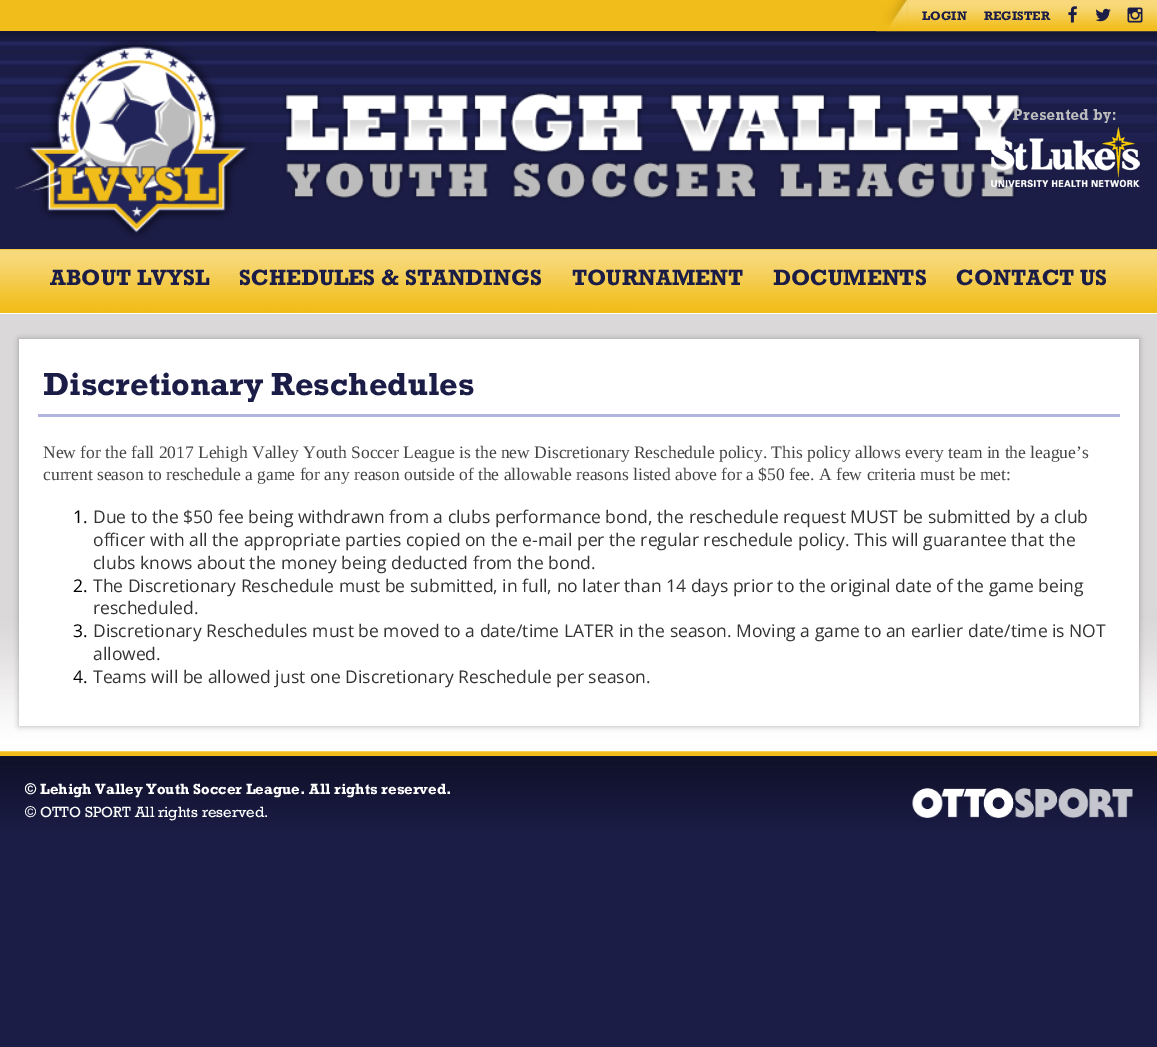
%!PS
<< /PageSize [1157 1047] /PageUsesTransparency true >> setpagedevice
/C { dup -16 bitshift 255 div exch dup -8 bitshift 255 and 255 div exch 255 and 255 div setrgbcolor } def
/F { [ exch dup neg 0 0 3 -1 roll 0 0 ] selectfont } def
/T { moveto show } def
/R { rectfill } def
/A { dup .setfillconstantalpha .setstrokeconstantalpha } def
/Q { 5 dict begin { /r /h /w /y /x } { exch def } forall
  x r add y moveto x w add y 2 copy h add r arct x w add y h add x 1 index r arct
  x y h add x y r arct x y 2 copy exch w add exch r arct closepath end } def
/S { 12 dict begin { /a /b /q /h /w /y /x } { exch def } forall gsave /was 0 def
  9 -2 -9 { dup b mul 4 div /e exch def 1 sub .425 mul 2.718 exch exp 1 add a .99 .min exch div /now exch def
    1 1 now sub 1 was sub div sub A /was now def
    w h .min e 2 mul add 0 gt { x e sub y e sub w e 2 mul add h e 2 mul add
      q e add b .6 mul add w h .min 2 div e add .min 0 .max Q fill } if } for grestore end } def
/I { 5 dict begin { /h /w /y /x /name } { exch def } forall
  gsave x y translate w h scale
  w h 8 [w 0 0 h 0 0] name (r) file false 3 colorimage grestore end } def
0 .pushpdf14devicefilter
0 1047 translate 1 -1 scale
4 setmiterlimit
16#1B1D47 C
0 0 1157 1047 R
16#F1BD1A C
0 0 908 31 R
(6.rgb) 0 31 1157 111 I
(1.rgb) 907 0 250 32 I
(2.rgb) 876 0 32 32 I
/Rockwell-Bold 12.5 F
16#1B1D47 C
(LOGIN) 922 20 T
(REGISTER) 984 20 T
(3.rgb) 1068 6 9 17 I
(4.rgb) 1095 8 16 14 I
(5.rgb) 1127 7 16 16 I
16#F4CB4A C
0 249 1157 1 R
(7.rgb) 15 39 1007 199 I
(8.rgb) 991 109 149 78 I
16#F1BD1A C
0 308 1157 5 R
(9.rgb) 0 250 1157 58 I
/Rockwell-Bold 22.5 F
16#1B1D47 C
(ABOUT LVYSL) 50 285 T
(SCHEDULES & STANDINGS) 239 285 T
(TOURNAMENT) 572 285 T
(DOCUMENTS) 773 285 T
(CONTACT US) 956 285 T
16#F1BD1A C
0 751 1157 5 R
(10.rgb) 0 314 1157 438 I
16#FFFFFF C
0 313 1157 1 R
16#000000 C
19 339 1120 387 0 3 .3 S
16#FFFFFF C
19 339 1120 387 R
/Rockwell-Bold 32.5 F
16#1B1D47 C
(Discretionary Reschedules) 43 395 T
16#B2B5E2 C
38 414 1082 3 R
/LiberationSerif-Regular 17.5 F
16#454545 C
(New for the fall 2017 Lehigh Valley Youth Soccer League is the new Discretionary Reschedule policy. This policy allows every team in the league’s) 43 458 T
(current season to reschedule a game for any reason outside of the allowable reasons listed above for a $50 fee. A few criteria must be met:) 43 480 T
/OpenSans-Regular 17.5 F
16#000000 C
(1.) 73 523 T
16#333333 C
(Due to the $50 fee being withdrawn from a clubs performance bond, the reschedule request MUST be submitted by a club) 93 523 T
(officer with all the appropriate parties copied on the e-mail per the regular reschedule policy. This will guarantee that the) 93 546 T
(clubs knows about the money being deducted from the bond.) 93 569 T
16#000000 C
(2.) 73 592 T
16#333333 C
(The Discretionary Reschedule must be submitted, in full, no later than 14 days prior to the original date of the game being) 93 592 T
(rescheduled.) 93 614 T
16#000000 C
(3.) 73 637 T
16#333333 C
(Discretionary Reschedules must be moved to a date/time LATER in the season. Moving a game to an earlier date/time is NOT) 93 637 T
(allowed.) 93 660 T
16#000000 C
(4.) 73 683 T
16#333333 C
(Teams will be allowed just one Discretionary Reschedule per season.) 93 683 T
(11.rgb) 0 756 1157 73 I
/Rockwell-Bold 15 F
16#FFFFFF C
(© Lehigh Valley Youth Soccer League. All rights reserved.) 25 794 T
/Rockwell-Regular 15 F
(© OTTO SPORT All rights reserved.) 25 817 T
(12.rgb) 912 788 221 30 I
.poppdf14devicefilter showpage
